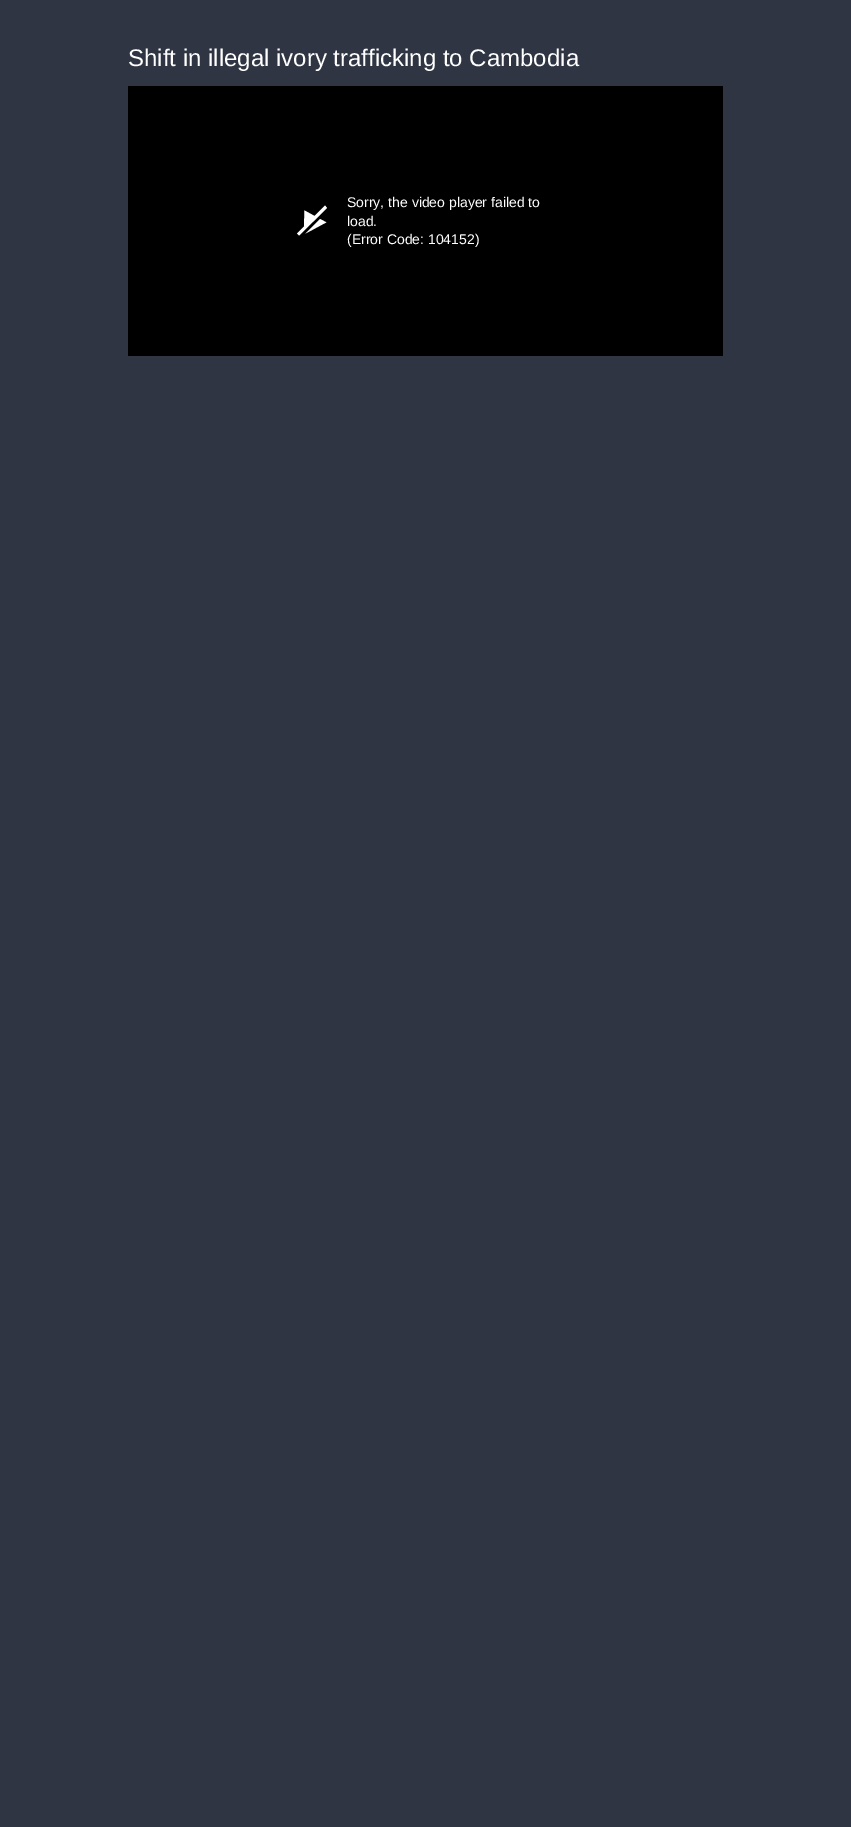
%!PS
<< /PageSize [851 1827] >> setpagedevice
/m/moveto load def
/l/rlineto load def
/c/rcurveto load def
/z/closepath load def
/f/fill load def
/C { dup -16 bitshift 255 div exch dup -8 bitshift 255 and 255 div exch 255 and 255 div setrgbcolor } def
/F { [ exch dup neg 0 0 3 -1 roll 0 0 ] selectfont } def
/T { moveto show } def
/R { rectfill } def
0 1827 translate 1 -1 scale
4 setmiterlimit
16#2F3542 C
0 0 851 1827 R
/LiberationSans-Regular 24 F
16#FFFFFF C
(Shift in illegal ivory trafficking to Cambodia) 128 66 T
16#000000 C
128 86 595 270 R
16#FFFFFF C
326 222.5 m -20.5 11 l 14.5 -14.5 l 5.5 3 7 3.5 6 3.5 c z 325 205.5 m -10.5 10.5 l -10 -5.5 l -.5 16 l -7 7 l 2 2 l 28 -27.5 l z f
/LiberationSans-Regular 14 F
(Sorry, the video player failed to) 347 207 T
(load.) 347 226 T
(\(Error Code: 104152\)) 347 244 T
showpage
